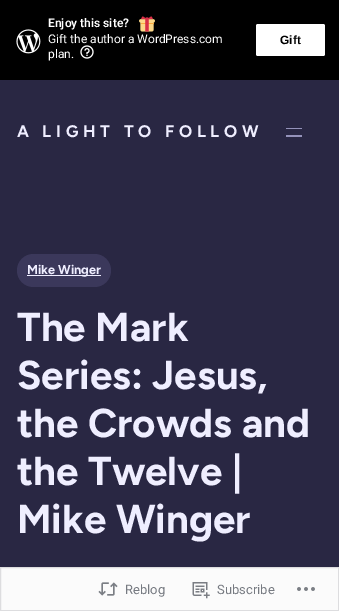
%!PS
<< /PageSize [339 611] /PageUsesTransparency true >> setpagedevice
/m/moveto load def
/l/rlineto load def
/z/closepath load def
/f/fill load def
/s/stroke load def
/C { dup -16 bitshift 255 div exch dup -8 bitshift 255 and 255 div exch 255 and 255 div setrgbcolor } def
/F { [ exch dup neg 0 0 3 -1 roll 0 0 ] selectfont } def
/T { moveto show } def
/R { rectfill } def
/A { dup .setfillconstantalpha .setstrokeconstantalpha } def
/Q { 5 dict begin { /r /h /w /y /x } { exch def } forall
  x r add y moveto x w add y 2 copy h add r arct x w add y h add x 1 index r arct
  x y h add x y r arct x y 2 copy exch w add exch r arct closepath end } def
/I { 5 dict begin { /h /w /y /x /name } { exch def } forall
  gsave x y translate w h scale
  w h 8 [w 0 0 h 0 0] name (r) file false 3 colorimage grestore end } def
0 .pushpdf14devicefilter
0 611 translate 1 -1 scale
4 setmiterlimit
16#292743 C
0 0 339 611 R
16#000000 C
0 0 339 80 R
(1.rgb) 16 29 25 25 I
/Roboto-SemiBold 12 F
16#FFFFFF C
(Enjoy this site?) 48 27 T
(2.rgb) 139 16 16 16 I
/Roboto-Regular 12 F
(Gift the author a WordPress.com) 48 43 T
(plan.) 48 58 T
(3.rgb) 80 45 14 14 I
256 24 69 32 2 Q f
/LiberationSans-Bold 12 F
16#000000 C
(Gift) 280 44 T
/Figtree-Bold 16.75 F
16#EFEEFF C
17 137 m 4.75 0 (A LIGHT TO FOLLOW) ashow
16#9492BA C
286 128 16 1 R
286 135 16 2 R
16#3B385B C
17 254 94 33 16.5 Q f
16#EFEEFF C
27 275 74 1 R
/Figtree-Bold 12.75 F
(Mike Winger) 27 274 T
/Figtree-Bold 40.25 F
(The Mark) 17 341 T
(Series: Jesus,) 17 389 T
(the Crowds and) 17 437 T
(the Twelve |) 17 485 T
(Mike Winger) 17 533 T
0.98 A
16#FFFFFF C
.5 567.5 m 338 0 l 0 43 l -338 0 l z f
1 A
16#DDDDDF C
.5 567.5 m 338 0 l 0 43 l -338 0 l z s
(4.rgb) 98 582 20 14 I
/Roboto-Regular 13 F
16#767A81 C
(Reblog) 125 594 T
(5.rgb) 192 582 18 17 I
(Subscribe) 217 594 T
(6.rgb) 297 587 18 4 I
.poppdf14devicefilter showpage
